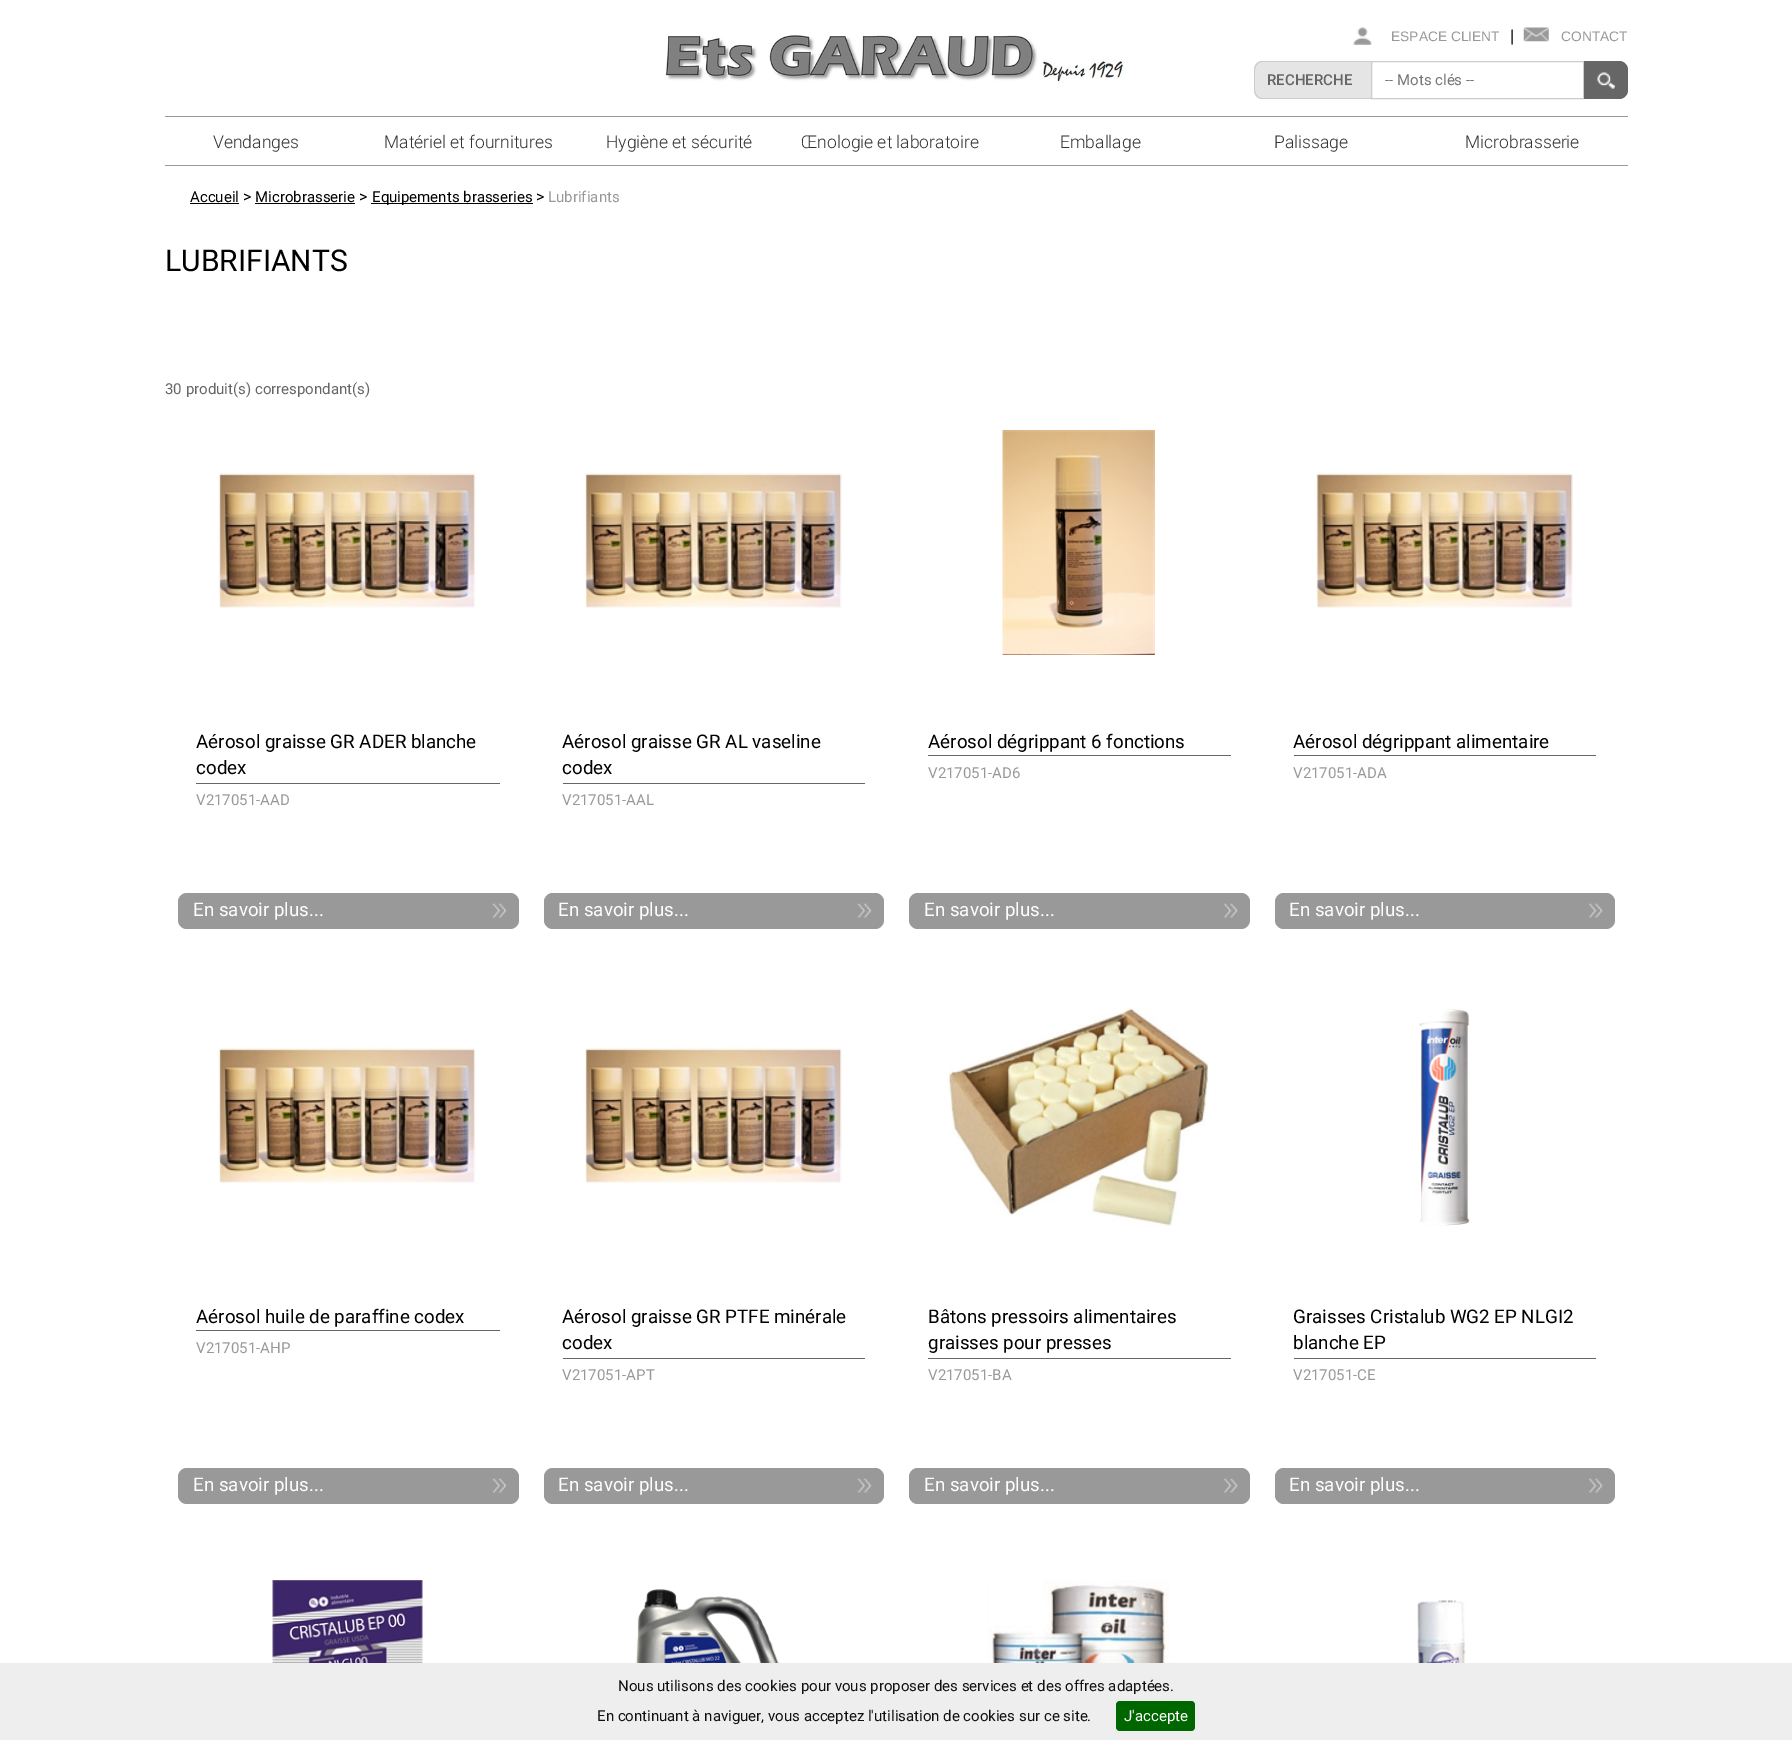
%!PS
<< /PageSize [1792 1740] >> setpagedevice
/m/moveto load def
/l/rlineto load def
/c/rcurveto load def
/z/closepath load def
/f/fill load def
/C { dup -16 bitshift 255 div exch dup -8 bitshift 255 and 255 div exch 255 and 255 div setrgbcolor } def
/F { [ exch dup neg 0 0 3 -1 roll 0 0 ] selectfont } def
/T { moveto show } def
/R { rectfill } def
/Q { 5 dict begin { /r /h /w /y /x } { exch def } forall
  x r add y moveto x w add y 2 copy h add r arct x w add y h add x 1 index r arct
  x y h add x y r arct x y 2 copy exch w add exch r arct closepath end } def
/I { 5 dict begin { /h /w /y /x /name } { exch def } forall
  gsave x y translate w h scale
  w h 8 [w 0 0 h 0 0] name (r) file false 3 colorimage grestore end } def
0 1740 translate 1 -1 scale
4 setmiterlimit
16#FFFFFF C
0 0 1792 1740 R
(1.rgb) 665 35 460 49 I
16#E5E5E5 C
1263 61 m 108 0 l 0 38 l -108 0 l -5 0 -9 -4 -9 -9 c 0 -20 l 0 -5 4 -9 9 -9 c z f
16#CCCCCC C
1262 61 m 109 0 l 0 38 l -109 0 l -4 0 -8 -4 -8 -9 c 0 -20 l 0 -5 4 -9 8 -9 c z 1262 62 m 109 0 l 0 36 l -109 0 l -4 0 -7 -4 -7 -8 c 0 -20 l 0 -4 3 -8 7 -8 c z eofill
/Roboto-Medium 15 F
16#666666 C
(RECHERCHE) 1267 85 T
16#CCCCCC C
1371.5 61.5 212 37 rectstroke
/Roboto-Regular 15 F
16#757575 C
(-- Mots clés --) 1385 85 T
16#666666 C
1584 61 m 35 0 l 5 0 9 4 9 9 c 0 20 l 0 5 -4 9 -9 9 c -35 0 l z f
(2.rgb) 1597 72 18 17 I
(3.rgb) 1353 27 19 18 I
/LiberationSans-Regular 13.75 F
16#999999 C
(ESPACE CLIENT) 1391 41 T
/LiberationSans-Regular 16 F
16#000000 C
(|) 1510 41 T
(4.rgb) 1523 27 26 15 I
/LiberationSans-Regular 13.75 F
16#999999 C
(CONTACT) 1561 41 T
165 116 1463 1 R
165 165 1463 1 R
/Roboto-Light 17.5 F
16#333333 C
(Vendanges) 213 148 T
(Matériel et fournitures) 384 148 T
(Hygiène et sécurité) 606 148 T
(Œnologie et laboratoire) 801 148 T
(Emballage) 1060 148 T
(Palissage) 1274 148 T
(Microbrasserie) 1465 148 T
/Roboto-Regular 15 F
16#000000 C
(Accueil) 190 202 T
190 203 49 1 R
/Roboto-Regular 16 F
(>) 243 202 T
/Roboto-Regular 15 F
(Microbrasserie) 255 202 T
255 203 100 1 R
/Roboto-Regular 16 F
(>) 359 202 T
371 203 162 1 R
/Roboto-Regular 15 F
(Equipements brasseries) 372 202 T
/Roboto-Regular 16 F
(>) 536 202 T
/Roboto-Regular 15 F
16#999999 C
(Lubrifiants) 548 202 T
/Roboto-Regular 30 F
16#000000 C
(LUBRIFIANTS) 165 271 T
/Roboto-Regular 15 F
16#666666 C
(30 produit\(s\) correspondant\(s\)) 165 394 T
(5.rgb) 218 472 258 137 I
/Roboto-Regular 18.75 F
16#000000 C
(Aérosol graisse GR ADER blanche) 196 748 T
(codex) 196 774 T
16#666666 C
196 783 304 1 R
/Roboto-Regular 15 F
16#999999 C
(V217051-AAD) 196 805 T
178 893 341 36 9 Q f
(6.rgb) 492 903 15 15 I
/Roboto-Regular 18.75 F
16#FFFFFF C
(En savoir plus...) 193 916 T
(7.rgb) 585 472 257 137 I
16#000000 C
(Aérosol graisse GR AL vaseline) 562 748 T
(codex) 562 774 T
16#666666 C
563 783 302 1 R
/Roboto-Regular 15 F
16#999999 C
(V217051-AAL) 562 805 T
544 893 340 36 9 Q f
(6.rgb) 857 903 15 15 I
/Roboto-Regular 18.75 F
16#FFFFFF C
(En savoir plus...) 558 916 T
(8.rgb) 1002 430 153 225 I
16#000000 C
(Aérosol dégrippant 6 fonctions) 928 748 T
16#666666 C
928 755 303 1 R
/Roboto-Regular 15 F
16#999999 C
(V217051-AD6) 928 778 T
909 893 341 36 9 Q f
(9.rgb) 1223 903 15 15 I
/Roboto-Regular 18.75 F
16#FFFFFF C
(En savoir plus...) 924 916 T
(10.rgb) 1316 472 257 137 I
16#000000 C
(Aérosol dégrippant alimentaire) 1293 748 T
16#666666 C
1294 755 302 1 R
/Roboto-Regular 15 F
16#999999 C
(V217051-ADA) 1293 778 T
1275 893 340 36 9 Q f
(9.rgb) 1588 903 15 15 I
/Roboto-Regular 18.75 F
16#FFFFFF C
(En savoir plus...) 1289 916 T
(5.rgb) 218 1047 258 137 I
16#000000 C
(Aérosol huile de paraffine codex) 196 1323 T
16#666666 C
196 1330 304 1 R
/Roboto-Regular 15 F
16#999999 C
(V217051-AHP) 196 1353 T
178 1468 341 36 9 Q f
(6.rgb) 492 1478 15 15 I
/Roboto-Regular 18.75 F
16#FFFFFF C
(En savoir plus...) 193 1491 T
(7.rgb) 585 1047 257 137 I
16#000000 C
(Aérosol graisse GR PTFE minérale) 562 1323 T
(codex) 562 1349 T
16#666666 C
563 1358 302 1 R
/Roboto-Regular 15 F
16#999999 C
(V217051-APT) 562 1380 T
544 1468 340 36 9 Q f
(6.rgb) 857 1478 15 15 I
/Roboto-Regular 18.75 F
16#FFFFFF C
(En savoir plus...) 558 1491 T
(11.rgb) 948 1008 261 218 I
16#000000 C
(Bâtons pressoirs alimentaires) 928 1323 T
(graisses pour presses) 928 1349 T
16#666666 C
928 1358 303 1 R
/Roboto-Regular 15 F
16#999999 C
(V217051-BA) 928 1380 T
909 1468 341 36 9 Q f
(9.rgb) 1223 1478 15 15 I
/Roboto-Regular 18.75 F
16#FFFFFF C
(En savoir plus...) 924 1491 T
(12.rgb) 1419 1009 51 217 I
16#000000 C
(Graisses Cristalub WG2 EP NLGI2) 1293 1323 T
(blanche EP) 1293 1349 T
16#666666 C
1294 1358 302 1 R
/Roboto-Regular 15 F
16#999999 C
(V217051-CE) 1293 1380 T
1275 1468 340 36 9 Q f
(9.rgb) 1588 1478 15 15 I
/Roboto-Regular 18.75 F
16#FFFFFF C
(En savoir plus...) 1289 1491 T
(13.rgb) 272 1580 151 83 I
(14.rgb) 635 1589 144 74 I
(15.rgb) 987 1580 182 83 I
(16.rgb) 1417 1600 49 63 I
16#EEEEEE C
0 1663 1792 77 R
/Roboto-Regular 15 F
16#111111 C
(Nous utilisons des cookies pour vous proposer des services et des offres adaptées.) 618 1691 T
(En continuant à naviguer, vous acceptez l'utilisation de cookies sur ce site.) 597 1721 T
16#006600 C
1116 1701 79 30 4 Q f
16#FFFFFF C
(J'accepte) 1124 1721 T
showpage
